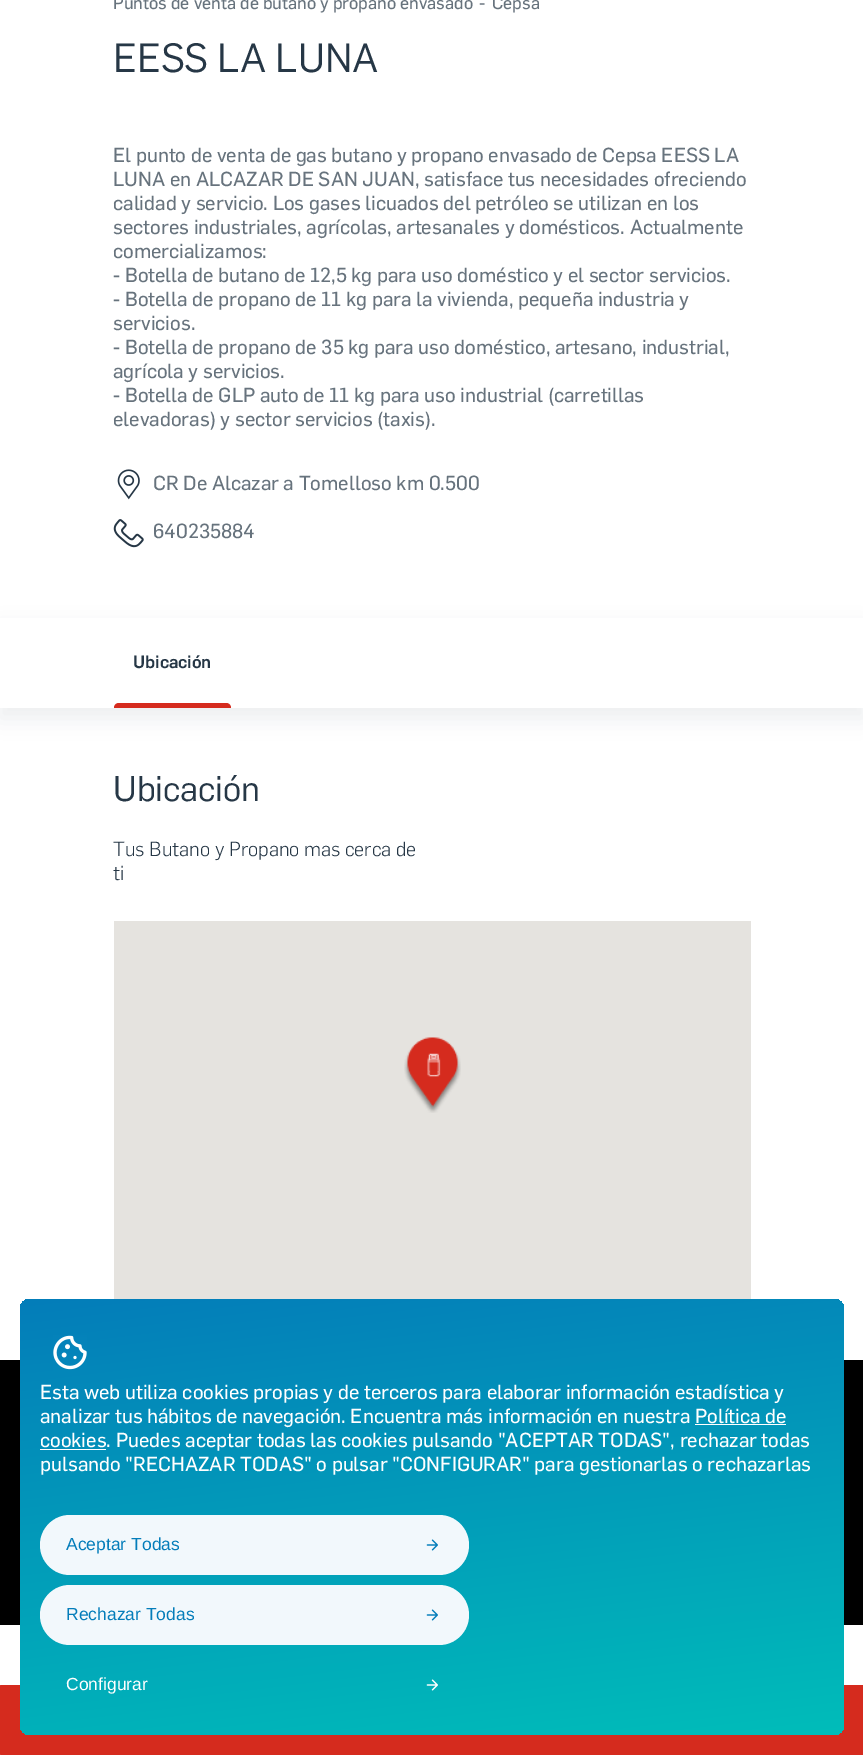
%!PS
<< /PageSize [863 1755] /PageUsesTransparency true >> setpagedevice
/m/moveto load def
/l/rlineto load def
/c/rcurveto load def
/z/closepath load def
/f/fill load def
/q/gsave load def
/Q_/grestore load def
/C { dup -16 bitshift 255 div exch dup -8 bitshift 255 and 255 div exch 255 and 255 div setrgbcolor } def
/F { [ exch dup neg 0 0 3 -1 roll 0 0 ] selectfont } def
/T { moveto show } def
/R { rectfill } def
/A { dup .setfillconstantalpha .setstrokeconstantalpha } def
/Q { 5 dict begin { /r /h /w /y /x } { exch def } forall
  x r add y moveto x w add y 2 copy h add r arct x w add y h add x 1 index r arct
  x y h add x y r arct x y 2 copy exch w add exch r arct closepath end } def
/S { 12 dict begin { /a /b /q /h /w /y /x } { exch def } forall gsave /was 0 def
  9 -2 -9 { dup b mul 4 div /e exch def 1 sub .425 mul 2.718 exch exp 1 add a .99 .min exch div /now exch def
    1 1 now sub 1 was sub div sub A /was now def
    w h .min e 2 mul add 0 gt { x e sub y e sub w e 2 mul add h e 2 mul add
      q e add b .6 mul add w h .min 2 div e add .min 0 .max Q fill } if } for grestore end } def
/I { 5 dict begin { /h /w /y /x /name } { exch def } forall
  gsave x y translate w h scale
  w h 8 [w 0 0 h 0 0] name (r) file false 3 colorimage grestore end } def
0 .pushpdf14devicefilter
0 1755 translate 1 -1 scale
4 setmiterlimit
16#FFFFFF C
0 0 863 1755 R
/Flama-Medium 17.5 F
16#67737D C
(Puntos de venta de butano y propano envasado) 113 9 T
(-) 479 9 T
(Cepsa) 492 9 T
/Flama-Regular 40 F
16#263746 C
(EESS LA LUNA) 113 72 T
/Flama-Medium 20 F
16#67737D C
(El punto de venta de gas butano y propano envasado de Cepsa EESS LA) 113 162 T
(LUNA en ALCAZAR DE SAN JUAN, satisface tus necesidades ofreciendo) 113 186 T
(calidad y servicio. Los gases licuados del petróleo se utilizan en los) 113 210 T
(sectores industriales, agrícolas, artesanales y domésticos. Actualmente) 113 234 T
(comercializamos:) 113 258 T
(- Botella de butano de 12,5 kg para uso doméstico y el sector servicios.) 113 282 T
(- Botella de propano de 11 kg para la vivienda, pequeña industria y) 113 306 T
(servicios.) 113 330 T
(- Botella de propano de 35 kg para uso doméstico, artesano, industrial,) 113 354 T
(agrícola y servicios.) 113 378 T
(- Botella de GLP auto de 11 kg para uso industrial \(carretillas) 113 402 T
(elevadoras\) y sector servicios \(taxis\).) 113 426 T
(1.rgb) 117 469 23 31 I
(CR De Alcazar a Tomelloso km 0.500) 153 490 T
(2.rgb) 113 519 31 29 I
(640235884) 153 538 T
16#263746 C
0 628 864 90 0 10 .08 S
16#FFFFFF C
0 618 863 90 R
/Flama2-Medium 17.5 F
16#263746 C
(Ubicación) 133 668 T
16#D52B1E C
119 703 m 107 0 l 3 0 5 2 5 5 c -117 0 l 0 -3 2 -5 5 -5 c z f
0 1685 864 70 1 Q f
/Flama-Regular 35 F
16#263746 C
(Ubicación) 113 801 T
/Flama-Light 20 F
(Tus Butano y Propano mas cerca de) 113 856 T
(ti) 113 880 T
16#E5E3DF C
114 921 637 378 R
(3.rgb) 404 1037 57 76 I
16#000000 C
0 1360 863 265 R
q 20 1299 824 436 10 Q clip newpath
<< /ShadingType 2 /ColorSpace /DeviceRGB /Coords [464 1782 399 1252] /Extend [true true] /Function << /FunctionType 2 /Domain [0 1] /C0 [0 .741 .725] /C1 [.016 .49 .729] /N 1 >> >> shfill Q_
(4.rgb) 53 1335 34 35 I
/Flama-Medium 20 F
16#FFFFFF C
(Esta web utiliza cookies propias y de terceros para elaborar información estadística y) 40 1399 T
(analizar tus hábitos de navegación. Encuentra más información en nuestra Política de) 40 1423 T
40 1449 66 1 R
(cookies. Puedes aceptar todas las cookies pulsando "ACEPTAR TODAS", rechazar todas) 40 1447 T
695 1424 91 1 R
(pulsando "RECHAZAR TODAS" o pulsar "CONFIGURAR" para gestionarlas o rechazarlas) 40 1471 T
16#F2F8FC C
40 1515 429 60 30 Q f
/LiberationSans-Regular 17.5 F
16#047DBA C
(Aceptar Todas) 66 1550 T
(5.rgb) 426 1539 12 12 I
16#F2F8FC C
40 1585 429 60 30 Q f
16#047DBA C
(Rechazar Todas) 66 1620 T
(5.rgb) 426 1609 12 12 I
16#FFFFFF C
(Configurar) 66 1690 T
(6.rgb) 426 1679 12 12 I
.poppdf14devicefilter showpage
